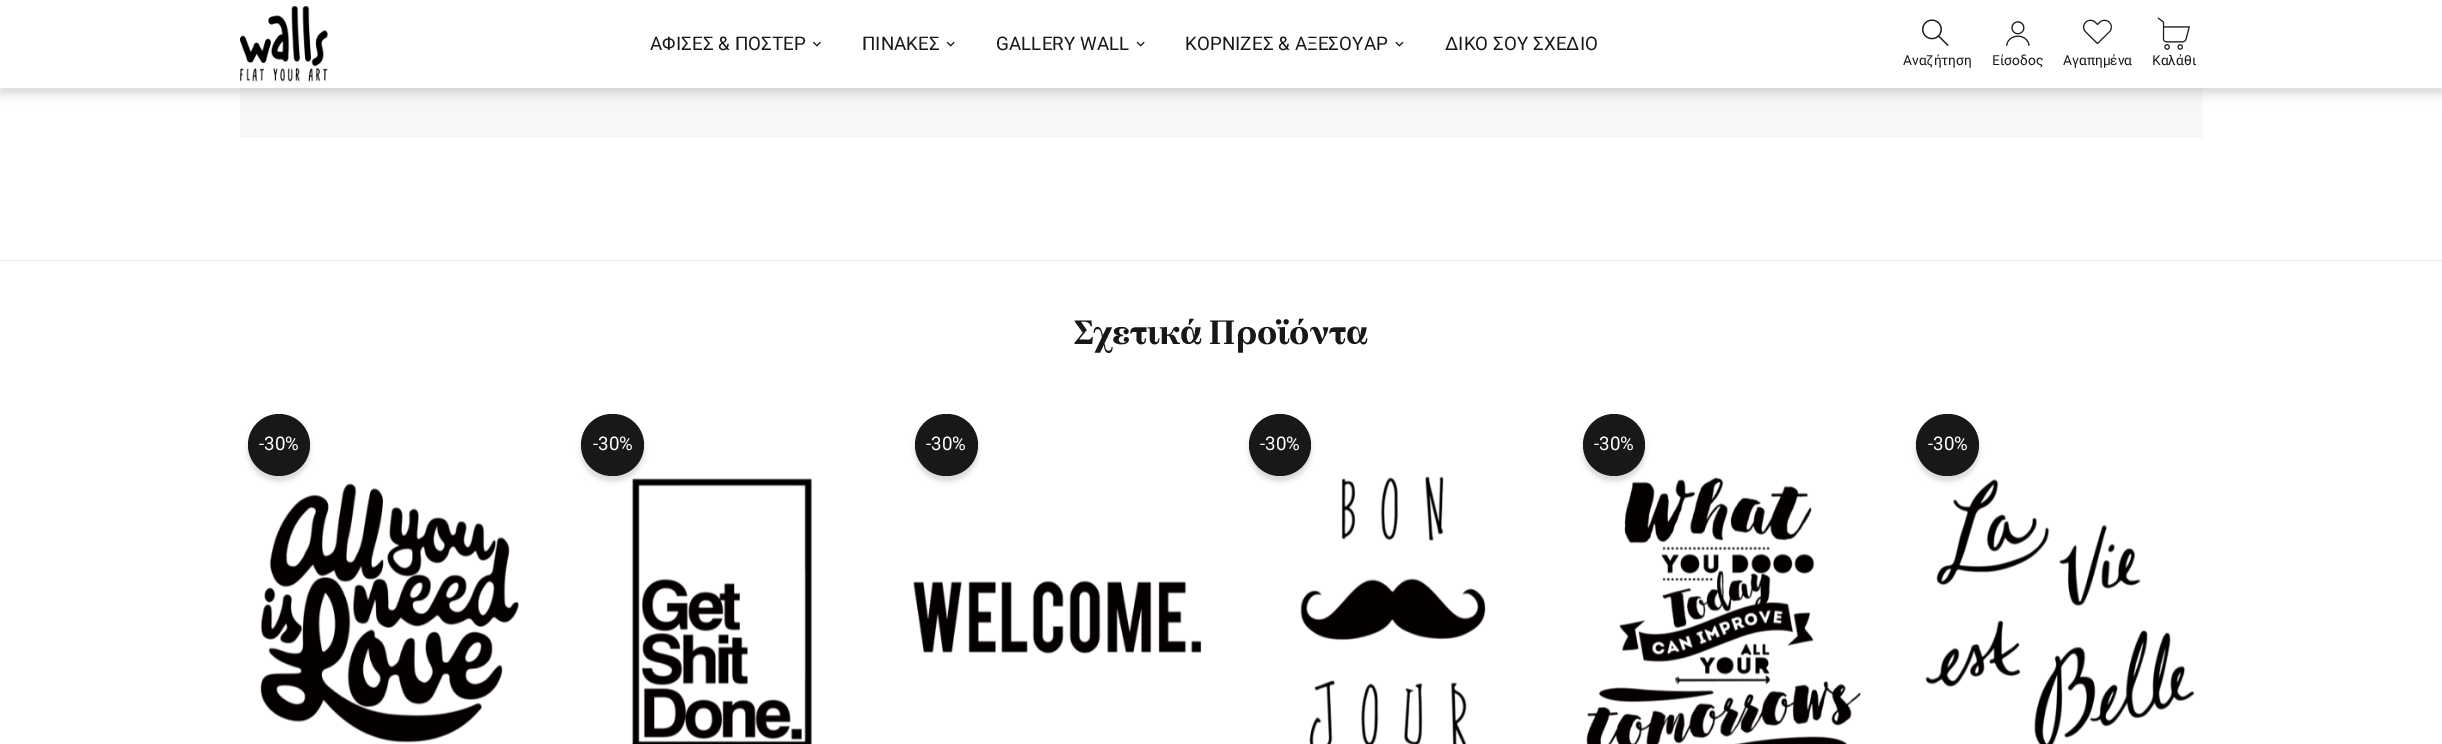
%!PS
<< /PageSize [2442 744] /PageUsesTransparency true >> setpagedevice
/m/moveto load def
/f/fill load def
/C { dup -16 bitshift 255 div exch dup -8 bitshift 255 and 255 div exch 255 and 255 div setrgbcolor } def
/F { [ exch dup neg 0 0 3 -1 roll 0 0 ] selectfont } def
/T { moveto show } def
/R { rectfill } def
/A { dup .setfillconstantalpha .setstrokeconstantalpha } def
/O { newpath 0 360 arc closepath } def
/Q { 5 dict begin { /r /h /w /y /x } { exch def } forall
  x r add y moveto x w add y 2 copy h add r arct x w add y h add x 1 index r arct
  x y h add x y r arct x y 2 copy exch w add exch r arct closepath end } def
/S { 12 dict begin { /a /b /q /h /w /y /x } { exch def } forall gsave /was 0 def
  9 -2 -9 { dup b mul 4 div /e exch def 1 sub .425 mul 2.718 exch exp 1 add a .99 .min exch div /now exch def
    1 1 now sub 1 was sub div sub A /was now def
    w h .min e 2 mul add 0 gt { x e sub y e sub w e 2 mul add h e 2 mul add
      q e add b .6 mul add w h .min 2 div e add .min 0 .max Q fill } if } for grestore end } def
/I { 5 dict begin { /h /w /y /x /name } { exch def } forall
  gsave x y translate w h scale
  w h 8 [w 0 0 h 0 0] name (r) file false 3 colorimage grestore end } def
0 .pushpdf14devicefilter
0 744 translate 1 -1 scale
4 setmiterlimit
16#FFFFFF C
0 0 2442 744 R
16#F7F7F7 C
240 88 1963 50 R
16#000000 C
0 6 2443 88 0 5 .15 S
16#FFFFFF C
0 0 2442 88 R
(1.rgb) 240 6 88 76 I
/Roboto-Regular 18.75 F
16#181818 C
650 50 m .1 0 (ΑΦΙΣΕΣ & ΠΟΣΤΕΡ) ashow
(2.rgb) 812 41 9 6 I
862 50 m .1 0 (ΠΙΝΑΚΕΣ) ashow
(3.rgb) 946 41 9 6 I
996 50 m .1 0 (GALLERY WALL) ashow
(3.rgb) 1136 41 9 6 I
1185 50 m .1 0 (ΚΟΡΝΙΖΕΣ & ΑΞΕΣΟΥΑΡ) ashow
(4.rgb) 1395 41 9 6 I
1445 50 m .1 0 (ΔΙΚΟ ΣΟΥ ΣΧΕΔΙΟ) ashow
(5.rgb) 1922 19 27 27 I
/Roboto-Regular 13.75 F
(Αναζήτηση) 1903 65 T
(6.rgb) 2006 21 24 25 I
(Είσοδος) 1992 65 T
(7.rgb) 2082 19 30 26 I
(Αγαπημένα) 2063 65 T
(8.rgb) 2157 17 33 33 I
(Καλάθι) 2152 65 T
16#E6E6E6 C
0 260 2442 1 R
/Brygada1918-Bold 35 F
16#181818 C
(Σχετικά Προϊόντα) 1074 344 T
(9.rgb) 260 483 259 260 I
16#000000 C
248 419 62 62 31 2.5 .15 S
16#181818 C
279 445 31 O f
/Roboto-Regular 18.75 F
16#FFFFFF C
(-30%) 259 450 T
(10.rgb) 631 478 182 266 I
16#000000 C
581 419 63 62 31 2.5 .15 S
16#181818 C
581 414 63 62 31 Q f
16#FFFFFF C
(-30%) 593 450 T
16#000000 C
915 419 63 62 31 2.5 .15 S
16#181818 C
915 414 63 62 31 Q f
16#FFFFFF C
(-30%) 926 450 T
(11.rgb) 913 580 289 74 I
(12.rgb) 1300 476 186 268 I
16#000000 C
1249 419 62 62 31 2.5 .15 S
16#181818 C
1280 445 31 O f
16#FFFFFF C
(-30%) 1260 450 T
(13.rgb) 1586 477 275 267 I
16#000000 C
1583 419 62 62 31 2.5 .15 S
16#181818 C
1614 445 31 O f
16#FFFFFF C
(-30%) 1594 450 T
(14.rgb) 1925 479 270 265 I
16#000000 C
1916 419 63 62 31 2.5 .15 S
16#181818 C
1916 414 63 62 31 Q f
16#FFFFFF C
(-30%) 1928 450 T
.poppdf14devicefilter showpage
